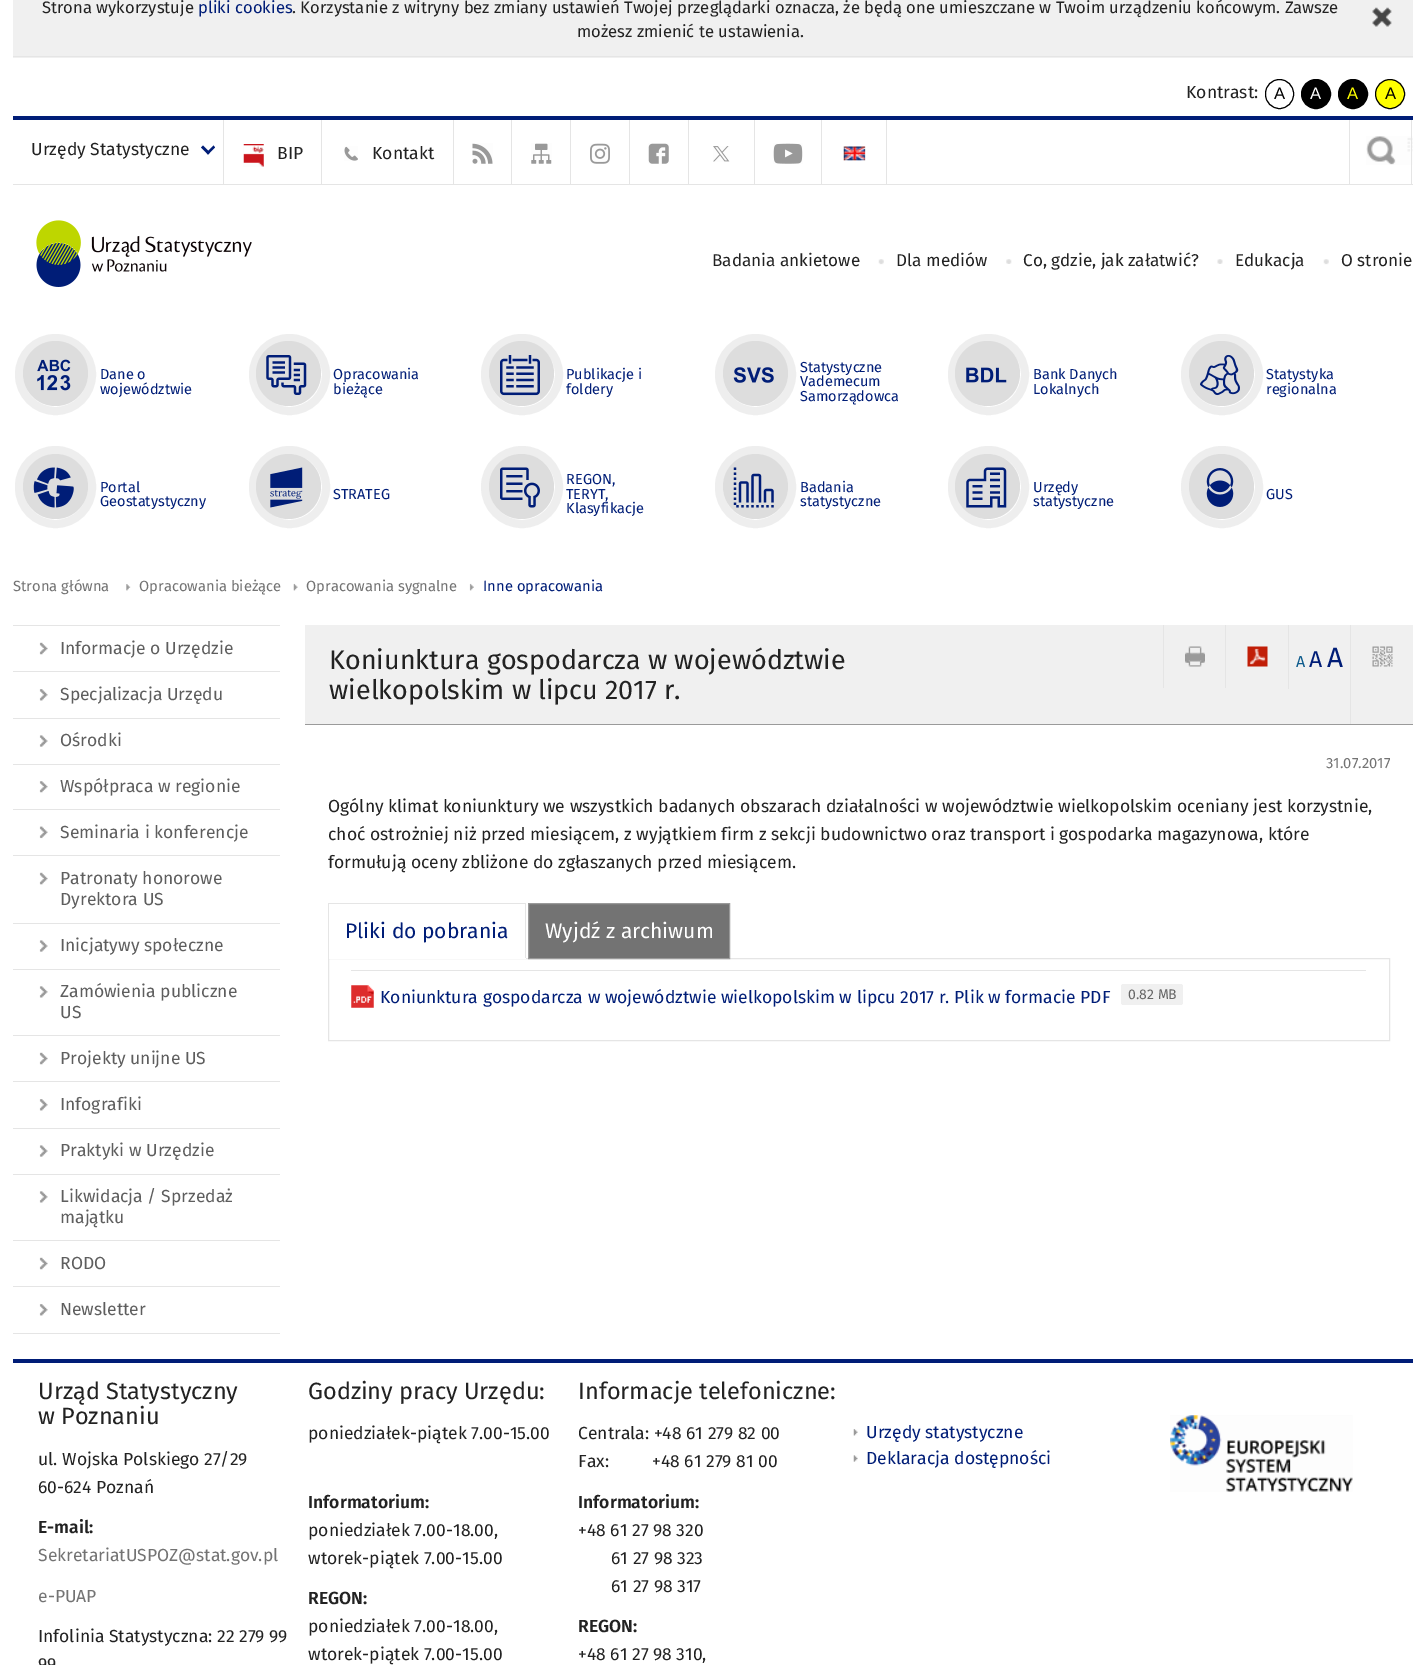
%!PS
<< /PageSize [1425 1665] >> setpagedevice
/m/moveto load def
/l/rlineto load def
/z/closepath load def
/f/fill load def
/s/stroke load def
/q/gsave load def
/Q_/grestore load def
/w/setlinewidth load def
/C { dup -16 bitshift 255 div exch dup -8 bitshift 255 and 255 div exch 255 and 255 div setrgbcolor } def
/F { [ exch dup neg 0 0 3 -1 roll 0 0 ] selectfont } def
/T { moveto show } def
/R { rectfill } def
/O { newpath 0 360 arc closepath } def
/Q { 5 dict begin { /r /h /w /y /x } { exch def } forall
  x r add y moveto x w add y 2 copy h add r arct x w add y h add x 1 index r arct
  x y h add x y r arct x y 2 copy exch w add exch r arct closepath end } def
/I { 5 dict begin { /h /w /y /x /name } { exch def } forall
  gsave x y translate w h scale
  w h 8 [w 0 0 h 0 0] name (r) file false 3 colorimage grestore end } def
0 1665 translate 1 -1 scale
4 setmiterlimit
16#FFFFFF C
0 0 1425 1665 R
16#F0F0F0 C
13 0 1400 58 R
16#E5E5E5 C
13 56 1400 1 R
/FiraSans-Regular 16.62 F
16#222222 C
(Strona wykorzystuje) 42 13 T
16#001D77 C
(pliki cookies) 198 13 T
16#222222 C
(. Korzystanie z witryny bez zmiany ustawień Twojej przeglądarki oznacza, że będą one umieszczane w Twoim urządzeniu końcowym. Zawsze) 292 13 T
(1.rgb) 1372 7 20 20 I
(możesz zmienić te ustawienia.) 577 37 T
/FiraSans-Regular 17.5 F
(Kontrast:) 1186 98 T
16#000000 C
1265.5 79.5 28 29 14 Q s
/LiberationSans-Regular 16.62 F
(A) 1274 99 T
1316 94 14.5 O q f Q_
s
16#FFFFFF C
(A) 1310 99 T
16#000000 C
1353 94 14.5 O q f Q_
s
16#FFFF00 C
(A) 1347 99 T
1390 94 14.5 O q f Q_
16#000000 C
s
(A) 1385 99 T
16#001D77 C
13 116 1400 4 R
16#E5E5E5 C
13 184 1400 1 R
223 120 1 64 R
/FiraSans-Regular 17.5 F
16#222222 C
(Urzędy Statystyczne) 31 155 T
16#001D77 C
213.5 145.5 m 1.5 2 l -7 7 l -1.5 -2 l z f
203 145.5 m 7 7 l -2 2 l -7 -7 l z f
16#E5E5E5 C
321 120 1 64 R
(2.rgb) 243 144 21 23 I
16#222222 C
(BIP) 277 159 T
16#E5E5E5 C
453 120 1 64 R
(3.rgb) 344 146 14 15 I
16#222222 C
(Kontakt) 372 159 T
16#E5E5E5 C
511 120 1 64 R
(4.rgb) 472 143 21 21 I
570 120 1 64 R
(5.rgb) 531 143 21 21 I
629 120 1 64 R
(6.rgb) 590 143 20 21 I
688 120 1 64 R
(7.rgb) 648 143 21 21 I
754 120 1 64 R
(8.rgb) 713 146 17 16 I
821 120 1 64 R
(9.rgb) 773 143 30 21 I
886 120 1 64 R
(10.rgb) 843 146 23 15 I
(11.rgb) 1366 136 47 29 I
1411 120 1 64 R
1349 120 1 64 R
(12.rgb) 36 220 216 67 I
/FiraSans-Regular 17.1 F
16#222222 C
(Badania ankietowe) 712 266 T
(13.rgb) 878 259 6 6 I
(Dla mediów) 896 266 T
(14.rgb) 1006 259 6 5 I
(Co, gdzie, jak załatwić?) 1023 266 T
(15.rgb) 1217 259 6 5 I
(Edukacja) 1235 266 T
(13.rgb) 1323 259 6 6 I
(O stronie) 1341 266 T
16#EEEEEE C
8 w
55.5 374.5 36.5 O s
16#DDDDDD C
55.5 373.5 32.5 O f
(16.rgb) 37 359 34 32 I
/FiraSans-Regular 14.5 F
16#001D77 C
(Dane o) 100 379 T
(województwie) 100 394 T
16#EEEEEE C
289.5 374.5 36.5 O s
16#DDDDDD C
288.5 373.5 32.5 O f
(17.rgb) 266 355 41 40 I
16#001D77 C
(Opracowania) 333 379 T
(bieżące) 333 394 T
16#EEEEEE C
485 338 74 73 36.5 Q s
16#DDDDDD C
521.5 373.5 32.5 O f
(18.rgb) 500 355 40 41 I
16#001D77 C
(Publikacje i) 566 379 T
(foldery) 566 394 T
16#EEEEEE C
755.5 374.5 36.5 O s
16#DDDDDD C
755.5 373.5 32.5 O f
(19.rgb) 733 367 41 16 I
16#001D77 C
(Statystyczne) 800 372 T
(Vademecum) 800 386 T
(Samorządowca) 800 401 T
16#EEEEEE C
988.5 374.5 36.5 O s
16#DDDDDD C
987.5 373.5 32.5 O f
(20.rgb) 966 367 41 16 I
16#001D77 C
(Bank Danych) 1033 379 T
(Lokalnych) 1033 394 T
16#EEEEEE C
1185 338 74 73 36.5 Q s
16#DDDDDD C
1221.5 373.5 32.5 O f
(21.rgb) 1200 354 40 42 I
16#001D77 C
(Statystyka) 1266 379 T
(regionalna) 1266 394 T
16#EEEEEE C
19 450 73 74 36.5 Q s
16#DDDDDD C
55.5 486.5 32.5 O f
(22.rgb) 33 467 41 41 I
16#001D77 C
(Portal) 100 492 T
(Geostatystyczny) 100 506 T
16#EEEEEE C
253 450 73 74 36.5 Q s
16#DDDDDD C
288.5 486.5 32.5 O f
(23.rgb) 270 467 33 41 I
16#001D77 C
(STRATEG) 333 499 T
16#EEEEEE C
522 487 37 O s
16#DDDDDD C
521.5 486.5 32.5 O f
(24.rgb) 500 467 40 41 I
16#001D77 C
(REGON,) 566 484 T
(TERYT,) 566 499 T
(Klasyfikacje) 566 513 T
16#EEEEEE C
719 450 73 74 36.5 Q s
16#DDDDDD C
755.5 486.5 32.5 O f
(25.rgb) 733 467 41 41 I
16#001D77 C
(Badania) 800 492 T
(statystyczne) 800 506 T
16#EEEEEE C
952 450 73 74 36.5 Q s
16#DDDDDD C
987.5 486.5 32.5 O f
(26.rgb) 966 467 41 41 I
16#001D77 C
(Urzędy) 1033 492 T
(statystyczne) 1033 506 T
16#EEEEEE C
1222 487 37 O s
16#DDDDDD C
1221.5 486.5 32.5 O f
(27.rgb) 1206 468 28 39 I
16#001D77 C
(GUS) 1266 499 T
/FiraSans-Regular 14.75 F
16#737373 C
(Strona główna) 13 591 T
(28.rgb) 126 584 5 7 I
(Opracowania bieżące) 139 591 T
(29.rgb) 293 583 5 8 I
(Opracowania sygnalne) 306 591 T
(30.rgb) 469 583 5 8 I
16#001D77 C
(Inne opracowania) 483 591 T
(31.rgb) 39 642 9 13 I
16#E5E5E5 C
13 625 267 1 R
13 671 267 1 R
/FiraSans-Regular 17.5 F
16#5E5E5E C
(Informacje o Urzędzie) 60 654 T
(32.rgb) 39 689 9 12 I
16#E5E5E5 C
13 718 267 1 R
16#5E5E5E C
(Specjalizacja Urzędu) 60 700 T
(33.rgb) 39 735 9 12 I
16#E5E5E5 C
13 764 267 1 R
16#5E5E5E C
(Ośrodki) 60 746 T
(34.rgb) 39 781 9 12 I
16#E5E5E5 C
13 809 267 1 R
16#5E5E5E C
(Współpraca w regionie) 60 792 T
(35.rgb) 39 826 9 13 I
16#E5E5E5 C
13 855 267 1 R
16#5E5E5E C
(Seminaria i konferencje) 60 838 T
(36.rgb) 39 872 9 13 I
16#E5E5E5 C
13 923 267 1 R
16#5E5E5E C
(Patronaty honorowe) 60 884 T
(Dyrektora US) 60 905 T
(33.rgb) 39 940 9 12 I
16#E5E5E5 C
13 969 267 1 R
16#5E5E5E C
(Inicjatywy społeczne) 60 951 T
(37.rgb) 39 986 9 12 I
16#E5E5E5 C
13 1035 267 1 R
16#5E5E5E C
(Zamówienia publiczne) 60 997 T
(US) 60 1018 T
(31.rgb) 39 1052 9 13 I
16#E5E5E5 C
13 1081 267 1 R
16#5E5E5E C
(Projekty unijne US) 60 1064 T
(32.rgb) 39 1099 9 12 I
16#E5E5E5 C
13 1128 267 1 R
16#5E5E5E C
(Infografiki) 60 1110 T
(33.rgb) 39 1145 9 12 I
16#E5E5E5 C
13 1174 267 1 R
16#5E5E5E C
(Praktyki w Urzędzie) 60 1156 T
(37.rgb) 39 1191 9 12 I
16#E5E5E5 C
13 1240 267 1 R
16#5E5E5E C
(Likwidacja / Sprzedaż) 60 1202 T
(majątku) 60 1223 T
(31.rgb) 39 1257 9 13 I
16#E5E5E5 C
13 1286 267 1 R
16#5E5E5E C
(RODO) 60 1269 T
(32.rgb) 39 1304 9 12 I
16#E5E5E5 C
13 1333 267 1 R
16#5E5E5E C
(Newsletter) 60 1315 T
16#F0F0F0 C
305 625 1108 99 R
16#9A9A9A C
305 724 1108 1 R
/FiraSans-Regular 26.9 F
16#222222 C
(Koniunktura gospodarcza w województwie) 329 669 T
(wielkopolskim w lipcu 2017 r.) 329 699 T
16#E5E5E5 C
1163 625 1 63 R
(38.rgb) 1185 646 20 21 I
1225 625 1 63 R
(39.rgb) 1247 646 21 21 I
1288 625 1 64 R
/FiraSans-Regular 16 F
16#0F5C8D C
(A) 1296 667 T
/FiraSans-Regular 23 F
16#001D77 C
(A) 1309 667 T
/FiraSans-Regular 28 F
(A) 1327 667 T
16#E5E5E5 C
1350 625 1 99 R
(40.rgb) 1372 646 21 21 I
/FiraSans-Regular 14.75 F
16#737373 C
(31.07.2017) 1326 768 T
/FiraSans-Regular 17.5 F
16#222222 C
(Ogólny klimat koniunktury we wszystkich badanych obszarach działalności w województwie wielkopolskim oceniany jest korzystnie,) 328 812 T
(choć ostrożniej niż przed miesiącem, z wyjątkiem firm z sekcji budownictwo oraz transport i gospodarka magazynowa, które) 328 840 T
(formułują oceny zbliżone do zgłaszanych przed miesiącem.) 328 868 T
16#E5E5E5 C
328 903 198 1 R
1 w
328.5 958.5 1061 82 rectstroke
525 903 1 56 R
16#FFFFFF C
328 958 198 1 R
16#E5E5E5 C
328 903 1 56 R
/FiraSans-Regular 21 F
16#001D77 C
(Pliki do pobrania) 345 938 T
16#737373 C
528.5 903.5 m 201 0 l 0 55 l -201 0 l z q f Q_
16#9A9A9A C
s
16#FFFFFF C
(Wyjdź z archiwum) 545 938 T
16#E5E5E5 C
351 970 1015 1 R
(41.rgb) 351 985 23 23 I
/FiraSans-Regular 17.5 F
16#001D77 C
(Koniunktura gospodarcza w województwie wielkopolskim w lipcu 2017 r. Plik w formacie PDF) 380 1003 T
16#F0F0F0 C
1121 984 62 21 2.5 Q f
/FiraSans-Regular 14 F
16#666666 C
(0.82 MB) 1128 999 T
16#001D77 C
13 1359 1400 4 R
/FiraSans-Regular 23.5 F
16#222222 C
(Urząd Statystyczny) 38 1399 T
(w Poznaniu) 38 1424 T
/FiraSans-Regular 17.5 F
(ul. Wojska Polskiego 27/29) 38 1465 T
(60-624 Poznań) 38 1493 T
/FiraSans-SemiBold 17.5 F
(E-mail:) 38 1533 T
/FiraSans-Regular 17.5 F
16#737373 C
(SekretariatUSPOZ@stat.gov.pl) 38 1561 T
(e-PUAP) 38 1602 T
16#222222 C
(Infolinia Statystyczna: 22 279 99) 38 1642 T
(99) 38 1670 T
/FiraSans-Regular 23.5 F
(Godziny pracy Urzędu:) 308 1399 T
/FiraSans-Regular 17.5 F
(poniedziałek-piątek 7.00-15.00) 308 1439 T
/FiraSans-SemiBold 17.5 F
(Informatorium:) 308 1508 T
/FiraSans-Regular 17.5 F
(poniedziałek 7.00-18.00,) 308 1536 T
(wtorek-piątek 7.00-15.00) 308 1564 T
/FiraSans-SemiBold 17.5 F
(REGON:) 308 1604 T
/FiraSans-Regular 17.5 F
(poniedziałek 7.00-18.00,) 308 1632 T
(wtorek-piątek 7.00-15.00) 308 1660 T
/FiraSans-Regular 23.5 F
(Informacje telefoniczne:) 578 1399 T
/FiraSans-Regular 17.5 F
(Centrala: +48 61 279 82 00) 578 1439 T
(Fax:) 578 1467 T
(+48 61 279 81 00) 652 1467 T
/FiraSans-SemiBold 17.5 F
(Informatorium:) 578 1508 T
/FiraSans-Regular 17.5 F
(+48 61 27 98 320) 578 1536 T
(61 27 98 323) 611 1564 T
(61 27 98 317) 611 1592 T
/FiraSans-SemiBold 17.5 F
(REGON:) 578 1632 T
/FiraSans-Regular 17.5 F
(+48 61 27 98 310,) 578 1660 T
(42.rgb) 853 1429 5 7 I
16#001D77 C
(Urzędy statystyczne) 866 1438 T
(43.rgb) 853 1455 5 7 I
(Deklaracja dostępności) 866 1464 T
(44.rgb) 1170 1415 183 77 I
showpage
